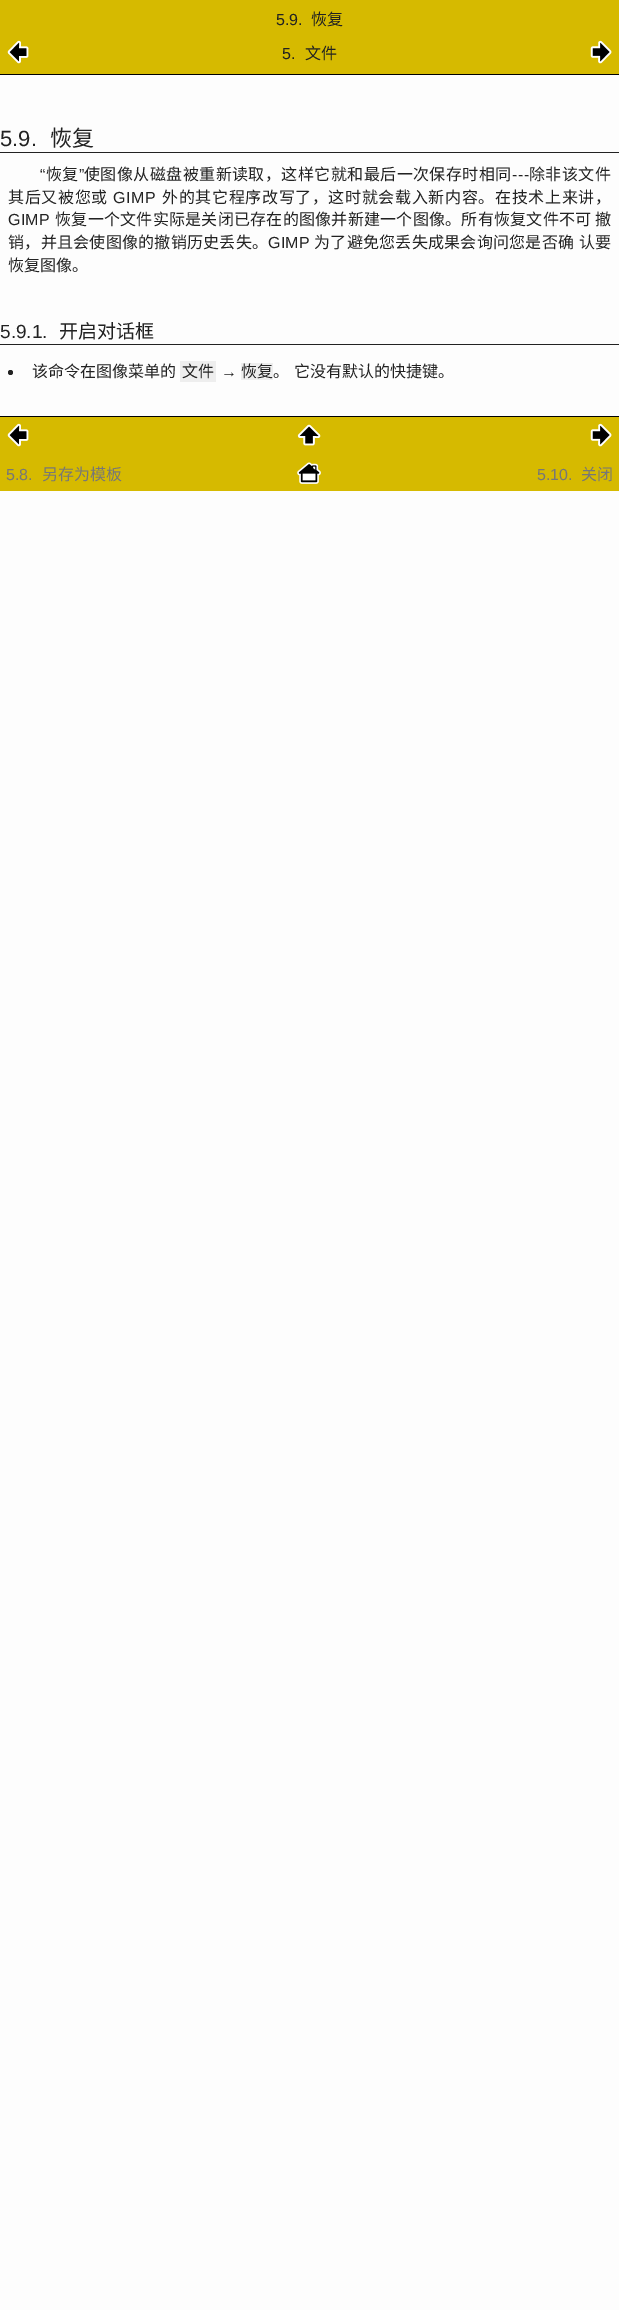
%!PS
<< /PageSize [619 2310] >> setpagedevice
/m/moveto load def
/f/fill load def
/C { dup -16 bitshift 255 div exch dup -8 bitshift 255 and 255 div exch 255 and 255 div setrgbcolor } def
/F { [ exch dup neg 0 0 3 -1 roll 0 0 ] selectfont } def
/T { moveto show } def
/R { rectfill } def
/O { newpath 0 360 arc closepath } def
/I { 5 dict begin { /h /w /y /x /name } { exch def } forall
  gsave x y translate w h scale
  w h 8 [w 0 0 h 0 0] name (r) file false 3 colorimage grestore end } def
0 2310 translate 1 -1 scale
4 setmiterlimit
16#FDFDFD C
0 0 619 2310 R
16#D6BA00 C
0 0 619 74 R
16#000000 C
0 74 619 1 R
/LiberationSans-Regular 16 F
16#222222 C
(5.9.) 276 25 T
/NotoSansCJKSC-Regular 16 F
(恢复) 311 25 T
(1.rgb) 7 40 22 24 I
/LiberationSans-Regular 16 F
(5.) 282 59 T
/NotoSansCJKSC-Regular 16 F
(文件) 305 59 T
(2.rgb) 590 40 22 24 I
0 152 619 1 R
/LiberationSans-Regular 22 F
(5.9.) 0 146 T
/NotoSansCJKSC-Regular 22 F
(恢复) 50 146 T
/LiberationSans-Regular 16 F
40 180 m .45 0 (“) ashow
/NotoSansCJKSC-Regular 16 F
46 180 m .45 0 (恢复) ashow
/LiberationSans-Regular 16 F
79 180 m .45 0 (”) ashow
/NotoSansCJKSC-Regular 16 F
84 180 m .45 0 (使图像从磁盘被重新读取，这样它就和最后一次保存时相同) ashow
529 180 m .45 0 (除非该文件) ashow
/LiberationSans-Regular 16 F
512 180 m .45 0 (---) ashow
/NotoSansCJKSC-Regular 16 F
8 203 m .65 0 (其后又被您或) ashow
/LiberationSans-Regular 16 F
113 203 m .65 0 (GIMP) ashow
/NotoSansCJKSC-Regular 16 F
162 203 m .65 0 (外的其它程序改写了，这时就会载入新内容。在技术上来讲，) ashow
/LiberationSans-Regular 16 F
8 225 m .25 0 (GIMP) ashow
/NotoSansCJKSC-Regular 16 F
55 225 m .25 0 (恢复一个文件实际是关闭已存在的图像并新建一个图像。所有恢复文件不可) ashow
(撤) 595 225 T
8 248 m .25 0 (销，并且会使图像的撤销历史丢失。) ashow
/LiberationSans-Regular 16 F
268 248 m .25 0 (GIMP) ashow
/NotoSansCJKSC-Regular 16 F
314 248 m .25 0 (为了避免您丢失成果会询问您是否确) ashow
(认要) 579 248 T
(恢复图像。) 8 271 T
0 344 619 1 R
/LiberationSans-Regular 19 F
(5.9.1.) 0 338 T
/NotoSansCJKSC-Regular 19 F
(开启对话框) 59 338 T
10.5 372.5 2.5 O f
/NotoSansCJKSC-Regular 16 F
(该命令在图像菜单的) 32 377 T
16#EEEEEE C
180 361 36 21 R
16#222222 C
(文件) 182 377 T
/LiberationSans-Regular 16 F
(→) 221 377 T
16#EEEEEE C
241 363 32 17 R
/NotoSansCJKSC-Regular 16 F
16#222222 C
(恢复。) 241 377 T
(它没有默认的快捷键。) 294 377 T
16#D6BA00 C
0 417 619 74 R
16#000000 C
0 416 619 1 R
(1.rgb) 7 423 22 24 I
(3.rgb) 297 424 24 22 I
(2.rgb) 590 423 22 24 I
/LiberationSans-Regular 16 F
16#777777 C
(5.8.) 6 480 T
/NotoSansCJKSC-Regular 16 F
(另存为模板) 42 480 T
(4.rgb) 297 462 24 22 I
/LiberationSans-Regular 16 F
(5.10.) 537 480 T
/NotoSansCJKSC-Regular 16 F
(关闭) 581 480 T
showpage
